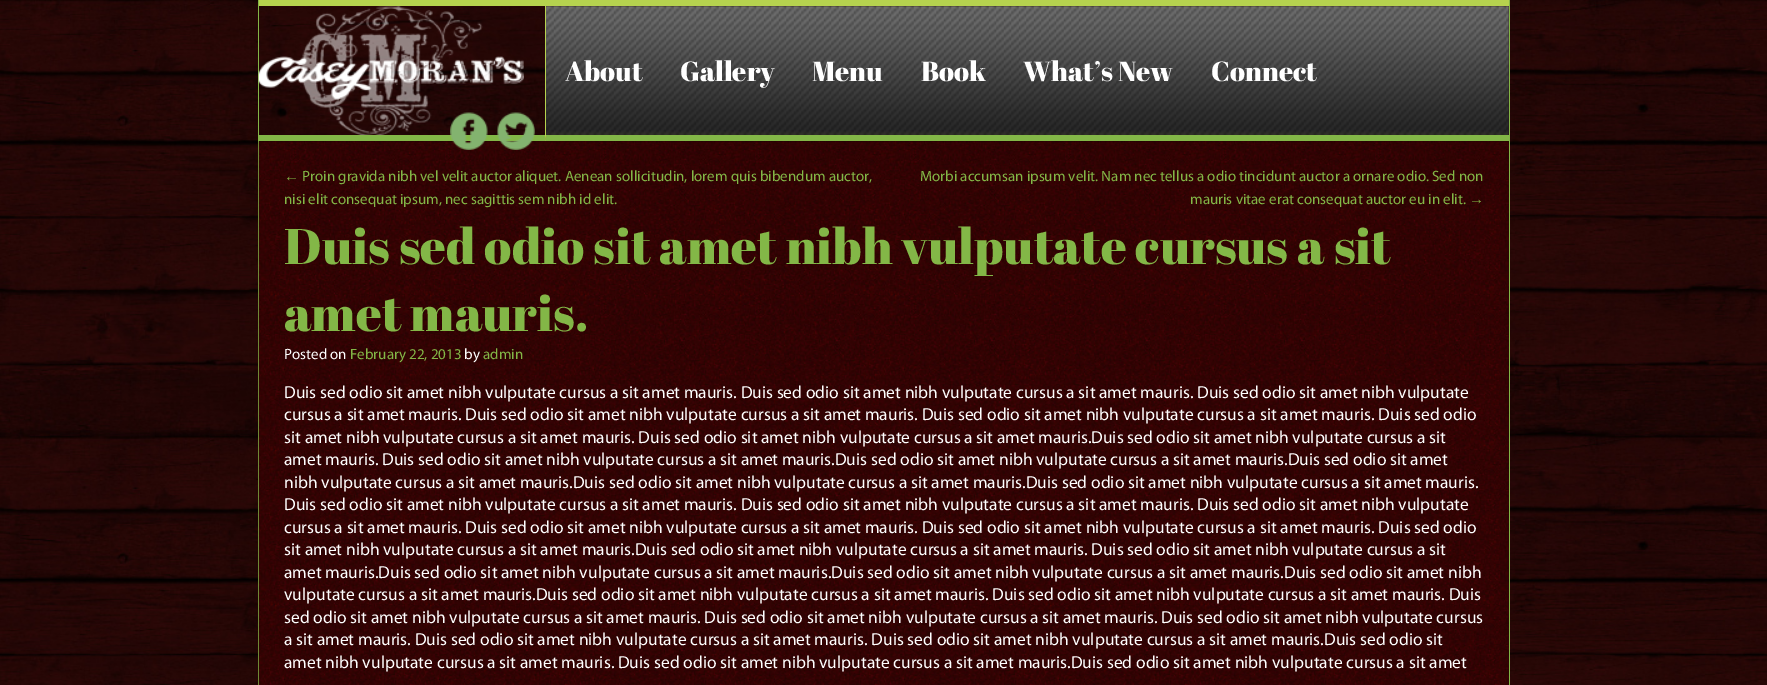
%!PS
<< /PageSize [1767 685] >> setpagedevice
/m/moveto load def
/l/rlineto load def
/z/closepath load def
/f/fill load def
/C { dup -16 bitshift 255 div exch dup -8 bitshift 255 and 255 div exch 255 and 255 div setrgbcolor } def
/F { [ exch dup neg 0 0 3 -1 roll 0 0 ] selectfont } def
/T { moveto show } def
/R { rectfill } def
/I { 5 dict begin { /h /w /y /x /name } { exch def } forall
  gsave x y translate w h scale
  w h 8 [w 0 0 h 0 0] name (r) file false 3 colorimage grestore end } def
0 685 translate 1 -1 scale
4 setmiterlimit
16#FFFFFF C
0 0 1767 685 R
(1.rgb) 0 0 1767 685 I
16#83B747 C
1509 0 1 685 R
258 0 1 685 R
16#B6D34E C
259 0 1250 6 R
16#83B747 C
259 135 286 6 R
(2.rgb) 258 6 266 129 I
(3.rgb) 546 6 963 129 I
1509 141 m -964 0 l 1 -6 l 963 0 l z f
16#B6D34E C
545 141 m 0 -141 l 1 6 l 0 129 l z f
/AbrilFatface-Regular 27.5 F
16#FFFFFF C
(About) 565 81 T
(Gallery) 680 81 T
(Menu) 812 81 T
(Book) 921 81 T
(What’s New) 1023 81 T
(Connect) 1211 81 T
(6.rgb) 258 141 1251 544 I
(4.rgb) 450 112 38 38 I
(5.rgb) 497 112 38 38 I
/LiberationSerif-Regular 15 F
16#83B747 C
(←) 284 181 T
/Myriad-Regular 15 F
(Proin gravida nibh vel velit auctor aliquet. Aenean sollicitudin, lorem quis bibendum auctor,) 302 181 T
(nisi elit consequat ipsum, nec sagittis sem nibh id elit.) 284 204 T
(Morbi accumsan ipsum velit. Nam nec tellus a odio tincidunt auctor a ornare odio. Sed non) 920 181 T
(mauris vitae erat consequat auctor eu in elit.) 1190 204 T
/LiberationSerif-Regular 15 F
(→) 1469 204 T
/AbrilFatface-Regular 50 F
(Duis sed odio sit amet nibh vulputate cursus a sit) 284 264 T
(amet mauris.) 284 331 T
/Myriad-Regular 15 F
16#FFFFFF C
(Posted on) 284 359 T
16#83B747 C
(February 22, 2013) 350 359 T
16#FFFFFF C
(by) 464 359 T
16#83B747 C
(admin) 483 359 T
/Myriad-Regular 17.5 F
16#FFFFFF C
(Duis sed odio sit amet nibh vulputate cursus a sit amet mauris. Duis sed odio sit amet nibh vulputate cursus a sit amet mauris. Duis sed odio sit amet nibh vulputate) 284 398 T
(cursus a sit amet mauris. Duis sed odio sit amet nibh vulputate cursus a sit amet mauris. Duis sed odio sit amet nibh vulputate cursus a sit amet mauris. Duis sed odio) 284 420 T
(sit amet nibh vulputate cursus a sit amet mauris. Duis sed odio sit amet nibh vulputate cursus a sit amet mauris.Duis sed odio sit amet nibh vulputate cursus a sit) 284 443 T
(amet mauris. Duis sed odio sit amet nibh vulputate cursus a sit amet mauris.Duis sed odio sit amet nibh vulputate cursus a sit amet mauris.Duis sed odio sit amet) 284 465 T
(nibh vulputate cursus a sit amet mauris.Duis sed odio sit amet nibh vulputate cursus a sit amet mauris.Duis sed odio sit amet nibh vulputate cursus a sit amet mauris.) 284 488 T
(Duis sed odio sit amet nibh vulputate cursus a sit amet mauris. Duis sed odio sit amet nibh vulputate cursus a sit amet mauris. Duis sed odio sit amet nibh vulputate) 284 510 T
(cursus a sit amet mauris. Duis sed odio sit amet nibh vulputate cursus a sit amet mauris. Duis sed odio sit amet nibh vulputate cursus a sit amet mauris. Duis sed odio) 284 533 T
(sit amet nibh vulputate cursus a sit amet mauris.Duis sed odio sit amet nibh vulputate cursus a sit amet mauris. Duis sed odio sit amet nibh vulputate cursus a sit) 284 555 T
(amet mauris.Duis sed odio sit amet nibh vulputate cursus a sit amet mauris.Duis sed odio sit amet nibh vulputate cursus a sit amet mauris.Duis sed odio sit amet nibh) 284 578 T
(vulputate cursus a sit amet mauris.Duis sed odio sit amet nibh vulputate cursus a sit amet mauris. Duis sed odio sit amet nibh vulputate cursus a sit amet mauris. Duis) 284 600 T
(sed odio sit amet nibh vulputate cursus a sit amet mauris. Duis sed odio sit amet nibh vulputate cursus a sit amet mauris. Duis sed odio sit amet nibh vulputate cursus) 284 623 T
(a sit amet mauris. Duis sed odio sit amet nibh vulputate cursus a sit amet mauris. Duis sed odio sit amet nibh vulputate cursus a sit amet mauris.Duis sed odio sit) 284 645 T
(amet nibh vulputate cursus a sit amet mauris. Duis sed odio sit amet nibh vulputate cursus a sit amet mauris.Duis sed odio sit amet nibh vulputate cursus a sit amet) 284 668 T
showpage
